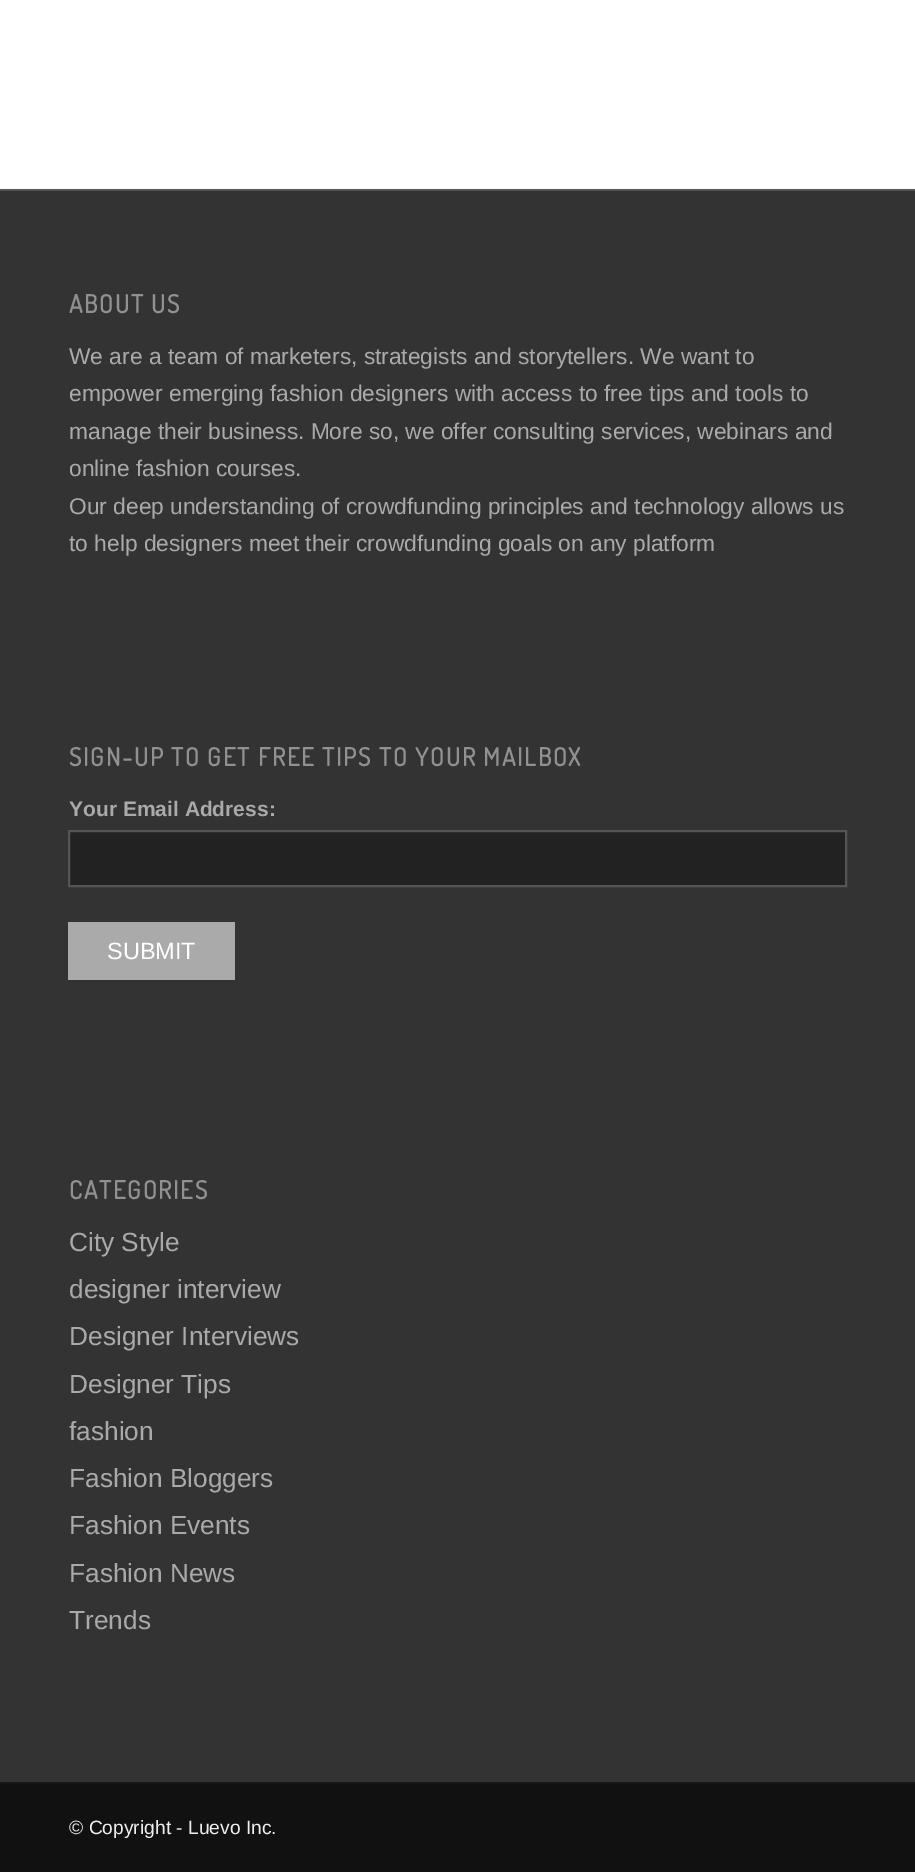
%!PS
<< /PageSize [915 1872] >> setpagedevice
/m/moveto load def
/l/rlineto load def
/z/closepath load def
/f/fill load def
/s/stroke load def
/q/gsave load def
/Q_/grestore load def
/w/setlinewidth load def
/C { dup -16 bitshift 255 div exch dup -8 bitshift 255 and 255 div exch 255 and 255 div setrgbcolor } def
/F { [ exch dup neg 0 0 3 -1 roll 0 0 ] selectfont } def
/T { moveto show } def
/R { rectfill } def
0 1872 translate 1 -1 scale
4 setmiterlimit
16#FFFFFF C
0 0 915 1872 R
16#333333 C
0 191 915 1591 R
16#555555 C
0 189 915 2 R
/Dosis-Bold 25 F
16#919191 C
69 313 m 1.75 0 (ABOUT US) ashow
/LiberationSans-Regular 22.75 F
16#AAAAAA C
(We are a team of marketers, strategists and storytellers. We want to) 69 364 T
(empower emerging fashion designers with access to free tips and tools to) 69 401 T
(manage their business. More so, we offer consulting services, webinars and) 69 439 T
(online fashion courses.) 69 476 T
(Our deep understanding of crowdfunding principles and technology allows us) 69 514 T
(to help designers meet their crowdfunding goals on any platform) 69 551 T
/Dosis-Bold 25 F
16#919191 C
69 766 m 1.75 0 (SIGN-UP TO GET FREE TIPS TO YOUR MAILBOX) ashow
/LiberationSans-Bold 21 F
16#AAAAAA C
(Your Email Address:) 69 816 T
16#222222 C
69 831 m 777 0 l 0 55 l -777 0 l z q f Q_
16#555555 C
2 w
s
16#AAAAAA C
68 922 167 58 R
/LiberationSans-Regular 23.5 F
16#FFFFFF C
(SUBMIT) 107 959 T
/Dosis-Bold 25 F
16#919191 C
69 1199 m 1.75 0 (CATEGORIES) ashow
/LiberationSans-Regular 26.25 F
16#AAAAAA C
(City Style) 69 1251 T
(designer interview) 69 1298 T
(Designer Interviews) 69 1345 T
(Designer Tips) 69 1393 T
(fashion) 69 1440 T
(Fashion Bloggers) 69 1487 T
(Fashion Events) 69 1534 T
(Fashion News) 69 1582 T
(Trends) 69 1629 T
16#111111 C
0 1784 915 88 R
16#161616 C
0 1782 915 2 R
/LiberationSans-Regular 19.25 F
16#EEEEEE C
(© Copyright - Luevo Inc.) 69 1834 T
showpage
